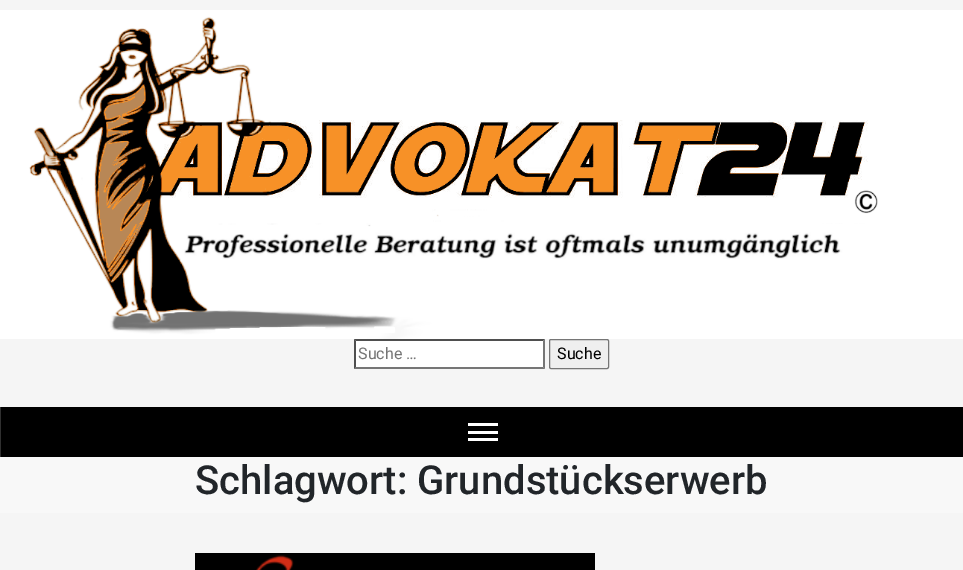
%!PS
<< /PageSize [963 570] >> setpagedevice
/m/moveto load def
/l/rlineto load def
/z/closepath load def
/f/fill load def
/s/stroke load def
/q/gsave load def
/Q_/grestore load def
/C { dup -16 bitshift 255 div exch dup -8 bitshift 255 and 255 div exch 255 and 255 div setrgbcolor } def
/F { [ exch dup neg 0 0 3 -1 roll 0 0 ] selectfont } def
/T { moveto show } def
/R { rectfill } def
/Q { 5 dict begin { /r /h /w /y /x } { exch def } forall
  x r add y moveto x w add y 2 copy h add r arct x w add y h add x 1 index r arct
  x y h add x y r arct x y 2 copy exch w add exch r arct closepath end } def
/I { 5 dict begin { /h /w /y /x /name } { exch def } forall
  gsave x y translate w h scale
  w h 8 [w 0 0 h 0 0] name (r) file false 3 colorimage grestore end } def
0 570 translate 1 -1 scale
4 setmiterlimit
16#F8F8F8 C
0 0 963 570 R
16#F5F5F5 C
0 0 963 407 R
(1.rgb) 0 10 963 329 I
16#FFFFFF C
354 339 191 30 R
16#4F4F4F C
354 339 m 191 0 l -2 2 l -187 0 l z f
16#767676 C
545 339 m 0 30 l -2 -2 l 0 -26 l z f
545 369 m -191 0 l 2 -2 l 187 0 l z f
16#4F4F4F C
354 369 m 0 -30 l 2 2 l 0 26 l z f
/Roboto-Regular 16 F
16#757575 C
(Suche …) 358 359 T
16#EFEFEF C
549.5 339.5 59 29 1.5 Q q f Q_
16#767676 C
s
16#000000 C
(Suche) 557 359 T
1 407 962 50 R
16#303030 C
0 407 1 50 R
16#FFFFFF C
468 423 30 3 R
468 431 30 3 R
468 438 30 3 R
/Roboto-Medium 40 F
16#212529 C
(Schlagwort: Grundstückserwerb) 195 494 T
16#F5F5F5 C
0 513 963 57 R
16#000000 C
195 553 400 17 R
(2.rgb) 256 555 38 15 I
showpage
